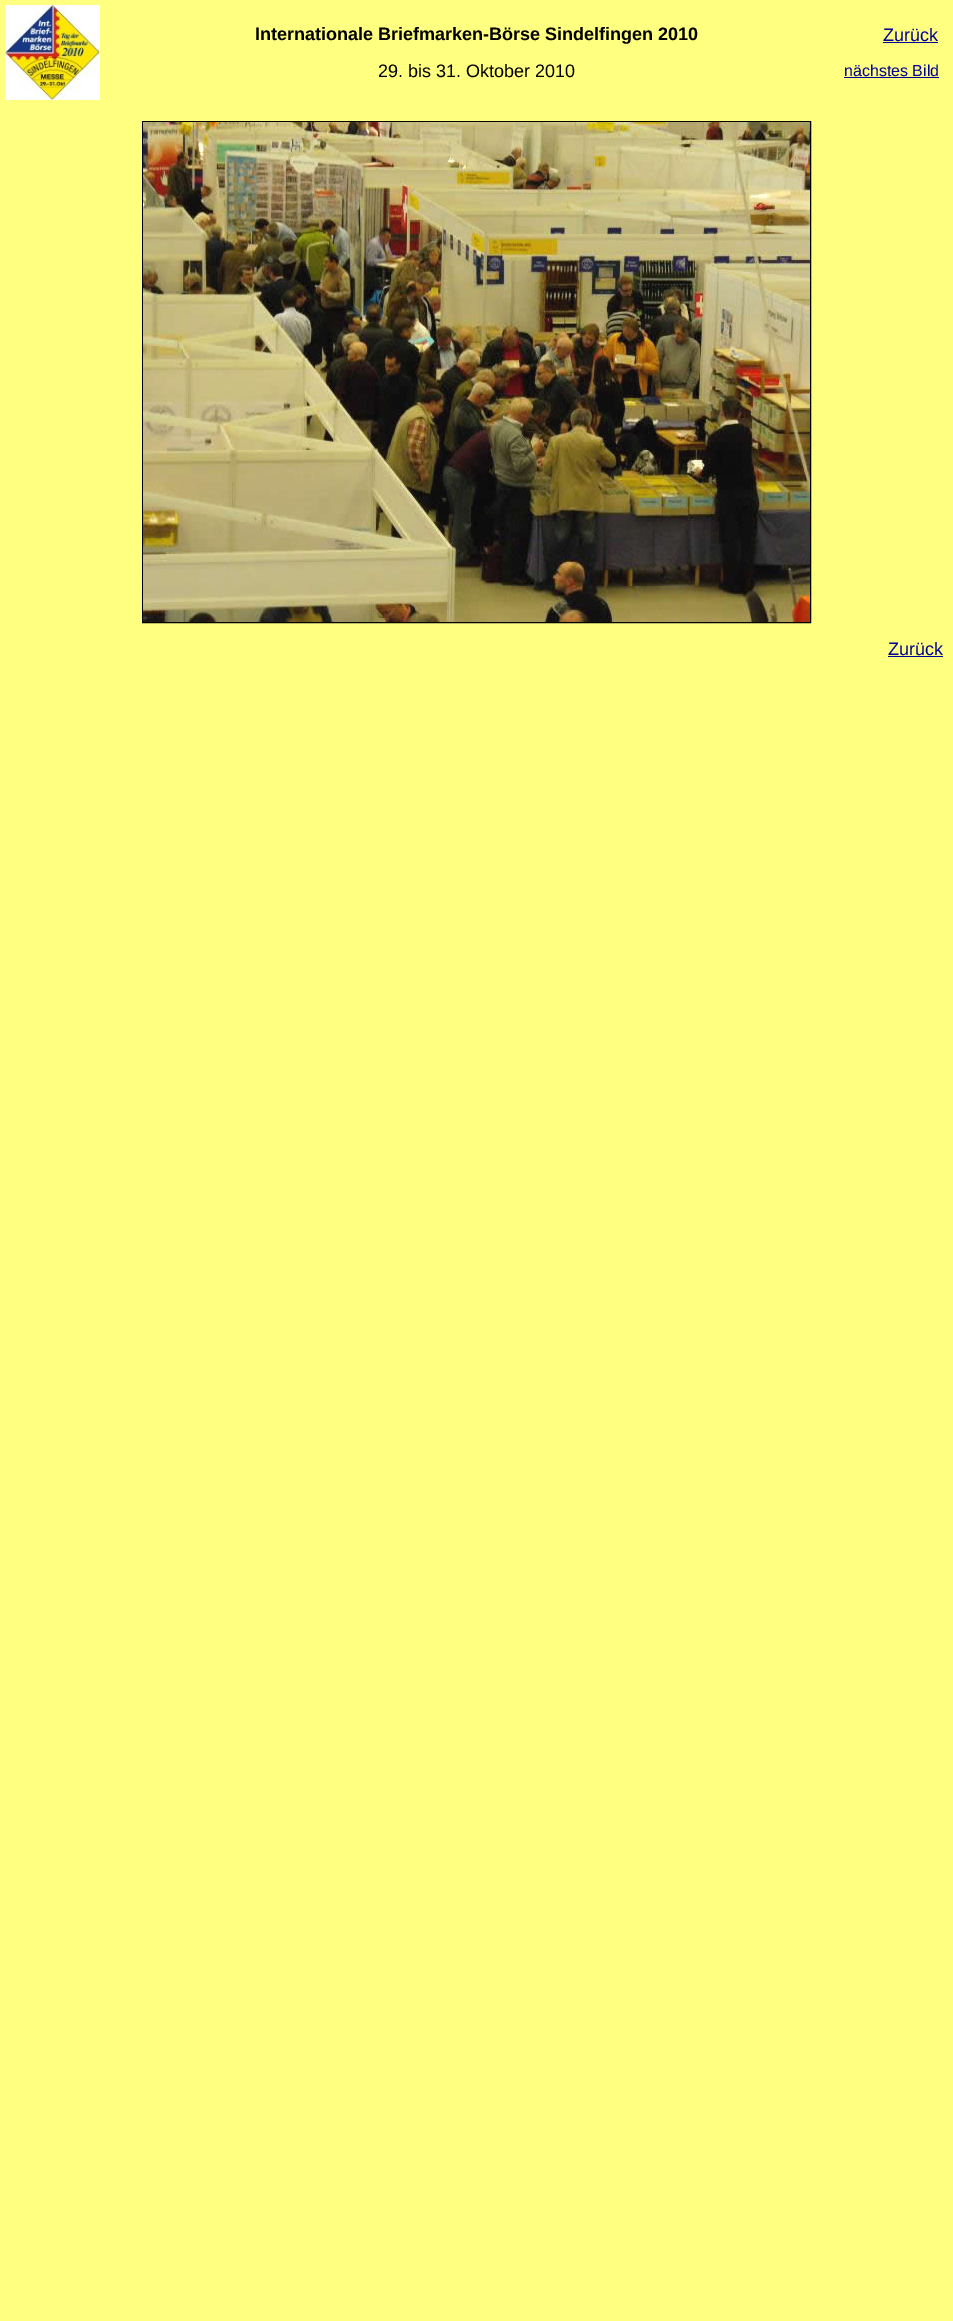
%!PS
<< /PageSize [953 2321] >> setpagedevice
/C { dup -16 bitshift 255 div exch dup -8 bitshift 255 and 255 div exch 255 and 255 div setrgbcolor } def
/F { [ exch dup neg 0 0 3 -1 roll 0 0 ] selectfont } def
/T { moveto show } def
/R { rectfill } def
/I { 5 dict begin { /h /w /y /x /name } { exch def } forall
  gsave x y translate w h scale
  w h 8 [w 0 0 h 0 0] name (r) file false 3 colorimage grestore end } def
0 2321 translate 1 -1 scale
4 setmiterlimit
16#FFFF80 C
0 0 953 2321 R
(1.rgb) 5 5 95 95 I
/LiberationSans-Bold 18 F
16#000000 C
(Internationale Briefmarken-Börse Sindelfingen 2010) 255 40 T
/LiberationSans-Regular 18 F
(29. bis 31. Oktober 2010) 378 77 T
16#000099 C
(Zurück) 883 41 T
883 42 55 1 R
/LiberationSans-Regular 16 F
(nächstes Bild) 844 76 T
844 77 95 1 R
16#000000 C
142.5 121.5 668 501 rectstroke
(2.rgb) 143 122 667 500 I
/LiberationSans-Regular 18 F
16#000099 C
(Zurück) 888 655 T
888 656 55 1 R
showpage
